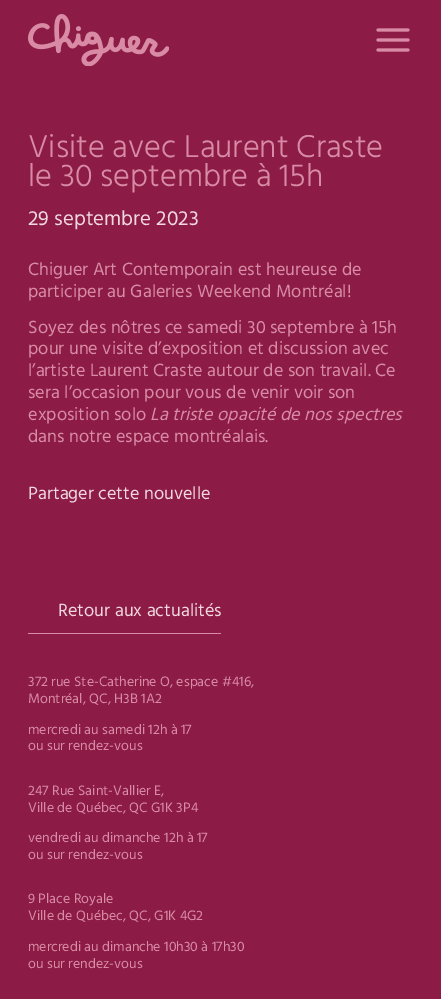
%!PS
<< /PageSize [441 999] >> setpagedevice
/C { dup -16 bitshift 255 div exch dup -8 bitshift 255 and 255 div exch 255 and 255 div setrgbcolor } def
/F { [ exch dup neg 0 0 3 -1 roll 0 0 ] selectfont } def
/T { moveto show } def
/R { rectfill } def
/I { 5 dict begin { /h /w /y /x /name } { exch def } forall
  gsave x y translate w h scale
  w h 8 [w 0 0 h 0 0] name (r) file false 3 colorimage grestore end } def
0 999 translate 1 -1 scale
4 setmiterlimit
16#8C1B46 C
0 0 441 999 R
(1.rgb) 28 14 141 52 I
(2.rgb) 376 28 34 24 I
/Hind-Light 32.4 F
16#D98BA6 C
(Visite avec Laurent Craste) 28 157 T
(le 30 septembre à 15h) 28 186 T
/Hind-Regular 21 F
16#F2D6E0 C
(29 septembre 2023) 28 225 T
/Hind-Regular 18.2 F
16#D98BA6 C
(Chiguer Art Contemporain est heureuse de) 28 275 T
(participer au Galeries Weekend Montréal!) 28 297 T
(Soyez des nôtres ce samedi 30 septembre à 15h) 28 333 T
(pour une visite d’exposition et discussion avec) 28 354 T
(l’artiste Laurent Craste autour de son travail. Ce) 28 376 T
(sera l’occasion pour vous de venir voir son) 28 398 T
(exposition solo) 28 420 T
/Hind-Italic 18.2 F
(La triste opacité de nos spectres) 150 420 T
/Hind-Regular 18.2 F
(dans notre espace montréalais.) 28 442 T
16#F2D6E0 C
(Partager cette nouvelle) 28 499 T
16#D98BA6 C
28 633 193 1 R
16#F2D6E0 C
(Retour aux actualités) 58 616 T
/Hind-Regular 14 F
16#D98BA6 C
(372 rue Ste-Catherine O, espace #416,) 28 686 T
(Montréal, QC, H3B 1A2) 28 703 T
(mercredi au samedi 12h à 17) 28 734 T
(ou sur rendez-vous) 28 750 T
(247 Rue Saint-Vallier E,) 28 795 T
(Ville de Québec, QC G1K 3P4) 28 812 T
(vendredi au dimanche 12h à 17) 28 842 T
(ou sur rendez-vous) 28 859 T
(9 Place Royale) 28 903 T
(Ville de Québec, QC, G1K 4G2) 28 920 T
(mercredi au dimanche 10h30 à 17h30) 28 951 T
(ou sur rendez-vous) 28 968 T
showpage
